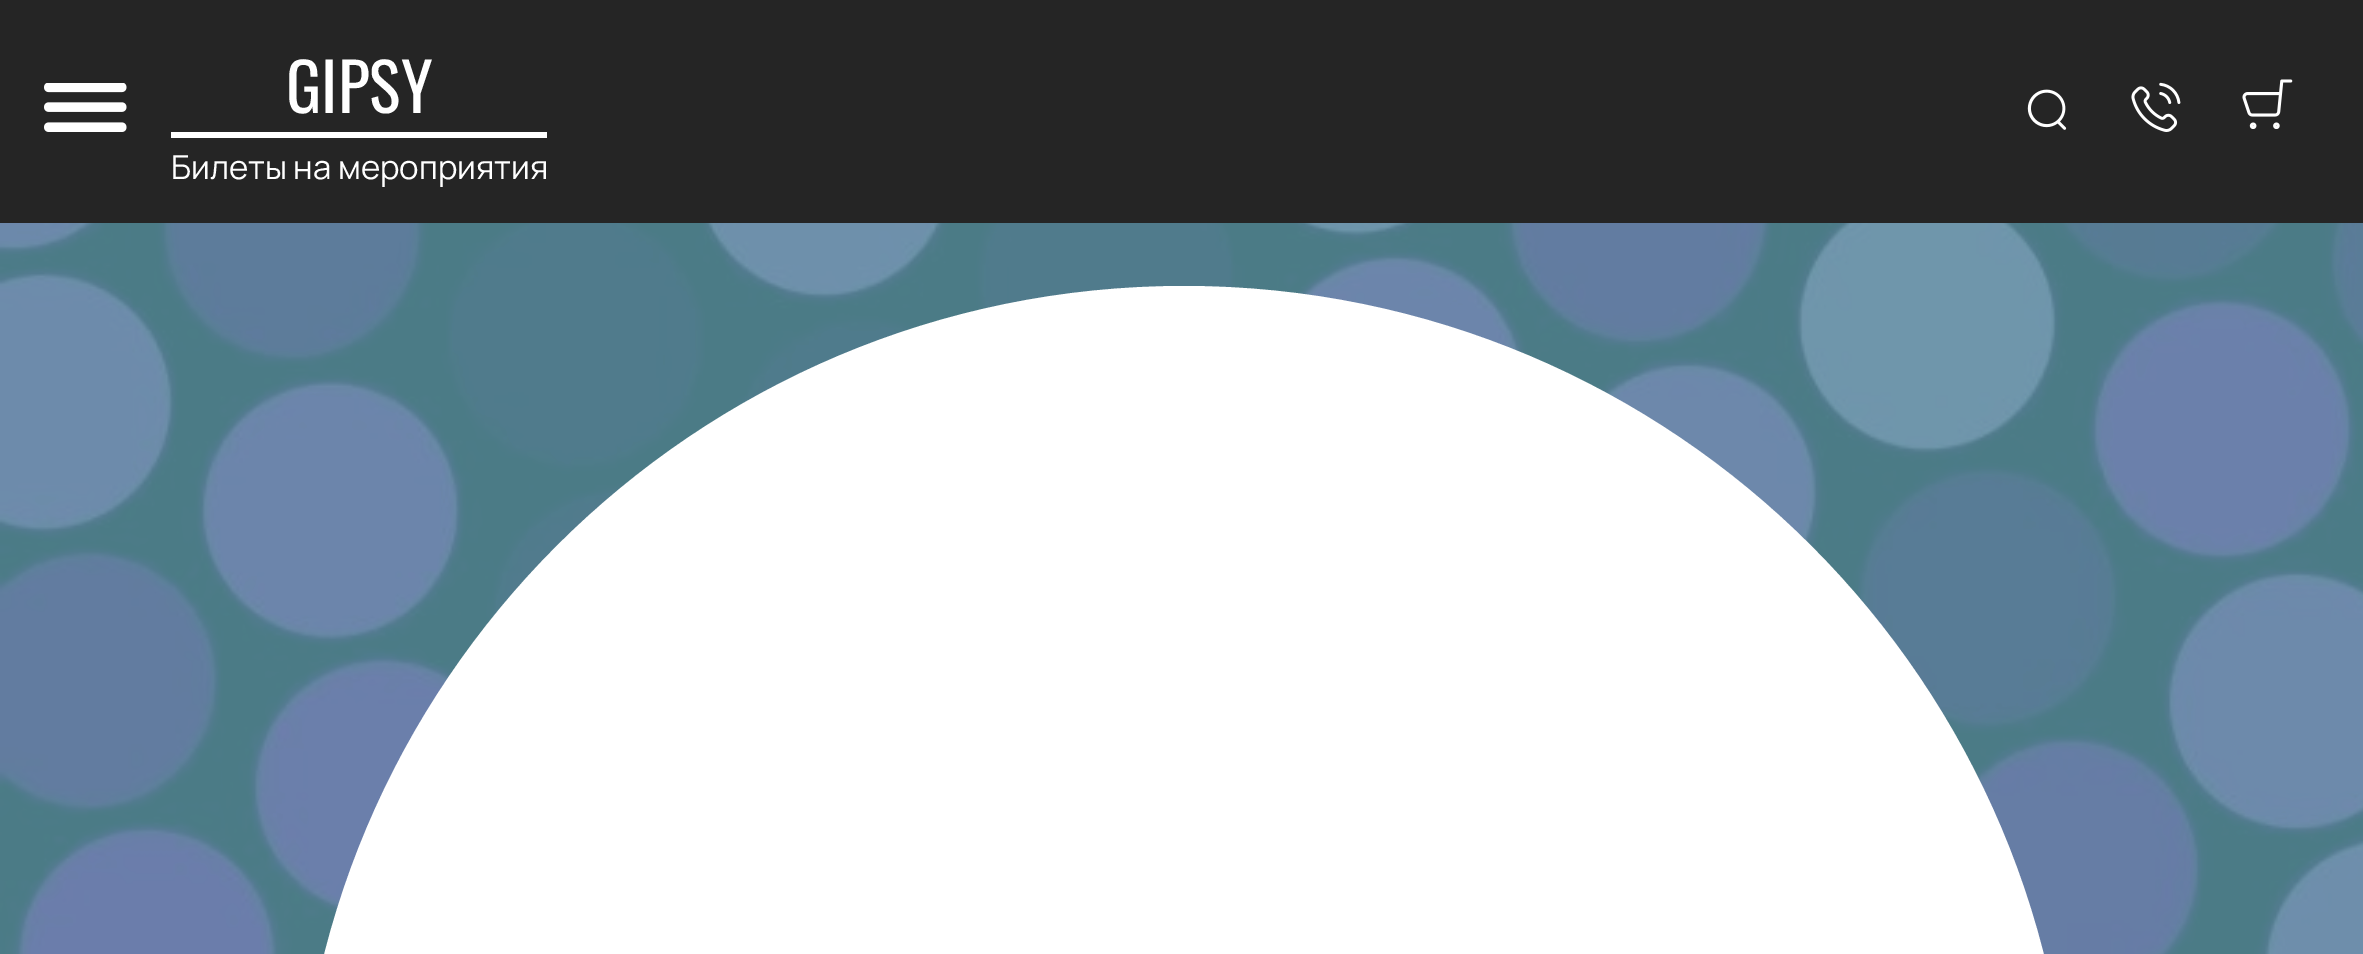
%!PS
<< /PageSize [2363 954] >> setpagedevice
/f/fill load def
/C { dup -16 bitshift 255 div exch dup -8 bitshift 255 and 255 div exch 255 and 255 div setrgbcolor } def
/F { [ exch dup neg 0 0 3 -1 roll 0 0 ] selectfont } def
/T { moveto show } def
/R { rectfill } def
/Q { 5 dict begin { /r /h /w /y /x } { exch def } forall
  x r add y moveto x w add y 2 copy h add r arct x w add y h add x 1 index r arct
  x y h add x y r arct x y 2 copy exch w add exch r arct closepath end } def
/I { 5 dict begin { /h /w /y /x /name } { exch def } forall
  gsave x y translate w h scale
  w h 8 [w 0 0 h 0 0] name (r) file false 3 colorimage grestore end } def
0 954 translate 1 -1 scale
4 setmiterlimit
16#58919E C
0 0 2363 954 R
16#252525 C
0 0 2363 223 R
(1.rgb) 44 83 83 49 I
/Oswald-Regular 66 F
16#FFFFFF C
(GIPSY) 286 113 T
171 132 376 6 R
/Manrope-ExtraLight 33 F
(Билеты на мероприятия) 171 179 T
(2.rgb) 2027 89 40 41 I
(3.rgb) 2131 82 50 50 I
(4.rgb) 2242 79 51 50 I
(5.rgb) 0 223 2363 731 I
297 286 1774 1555 887 Q f
showpage
